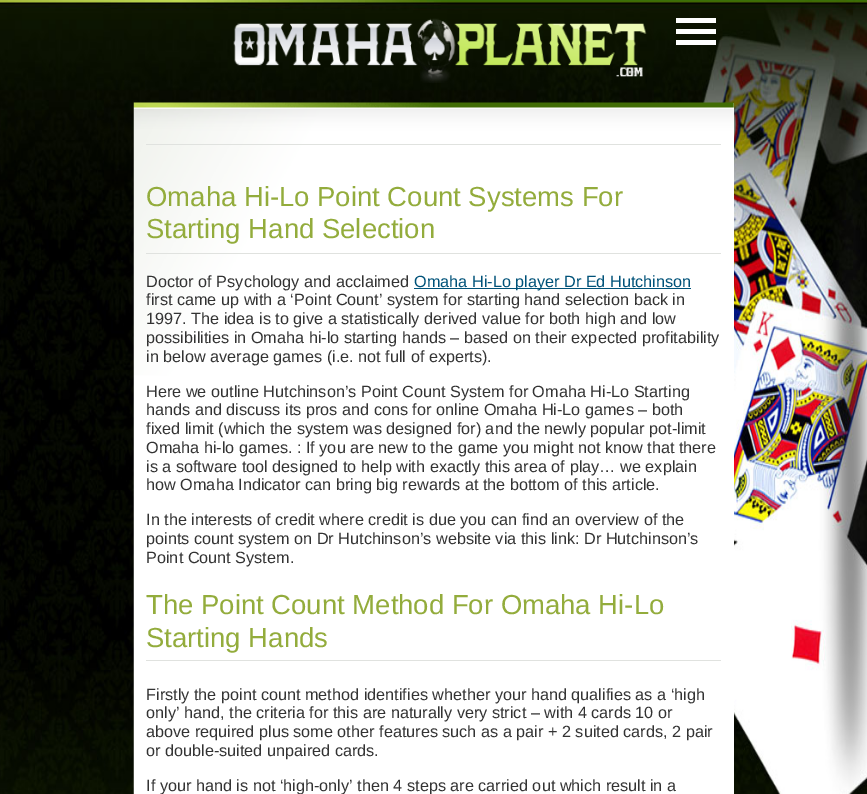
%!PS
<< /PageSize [867 794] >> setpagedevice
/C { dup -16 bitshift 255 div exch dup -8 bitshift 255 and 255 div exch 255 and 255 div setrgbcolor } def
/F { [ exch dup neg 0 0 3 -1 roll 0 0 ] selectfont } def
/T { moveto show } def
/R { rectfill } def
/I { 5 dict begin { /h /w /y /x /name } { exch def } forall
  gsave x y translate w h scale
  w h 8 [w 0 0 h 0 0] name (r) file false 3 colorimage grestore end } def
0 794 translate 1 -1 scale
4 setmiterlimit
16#FFFFFF C
0 0 867 794 R
(1.rgb) 0 0 867 794 I
(2.rgb) 233 18 414 65 I
676 18 40 5 R
676 29 40 5 R
676 40 40 5 R
(3.rgb) 133 102 601 692 I
16#E0E2DF C
146 144 575 1 R
146 253 575 1 R
/LiberationSans-Regular 27.5 F
16#93AC3C C
(Omaha Hi-Lo Point Count Systems For) 146 206 T
(Starting Hand Selection) 146 238 T
/LiberationSans-Regular 16.25 F
16#333333 C
(Doctor of Psychology and acclaimed) 146 287 T
16#005279 C
414 288 277 1 R
(Omaha Hi-Lo player Dr Ed Hutchinson) 414 287 T
16#333333 C
(first came up with a ‘Point Count’ system for starting hand selection back in) 146 305 T
(1997. The idea is to give a statistically derived value for both high and low) 146 324 T
(possibilities in Omaha hi-lo starting hands – based on their expected profitability) 146 343 T
(in below average games \(i.e. not full of experts\).) 146 362 T
(Here we outline Hutchinson’s Point Count System for Omaha Hi-Lo Starting) 146 397 T
(hands and discuss its pros and cons for online Omaha Hi-Lo games – both) 146 415 T
(fixed limit \(which the system was designed for\) and the newly popular pot-limit) 146 434 T
(Omaha hi-lo games. : If you are new to the game you might not know that there) 146 453 T
(is a software tool designed to help with exactly this area of play… we explain) 146 472 T
(how Omaha Indicator can bring big rewards at the bottom of this article.) 146 490 T
(In the interests of credit where credit is due you can find an overview of the) 146 525 T
(points count system on Dr Hutchinson’s website via this link: Dr Hutchinson’s) 146 544 T
(Point Count System.) 146 563 T
16#E0E2DF C
146 660 575 1 R
/LiberationSans-Regular 27.5 F
16#93AC3C C
(The Point Count Method For Omaha Hi-Lo) 146 614 T
(Starting Hands) 146 647 T
/LiberationSans-Regular 16.25 F
16#333333 C
(Firstly the point count method identifies whether your hand qualifies as a ‘high) 146 700 T
(only’ hand, the criteria for this are naturally very strict – with 4 cards 10 or) 146 718 T
(above required plus some other features such as a pair + 2 suited cards, 2 pair) 146 737 T
(or double-suited unpaired cards.) 146 756 T
(If your hand is not ‘high-only’ then 4 steps are carried out which result in a) 146 791 T
showpage
